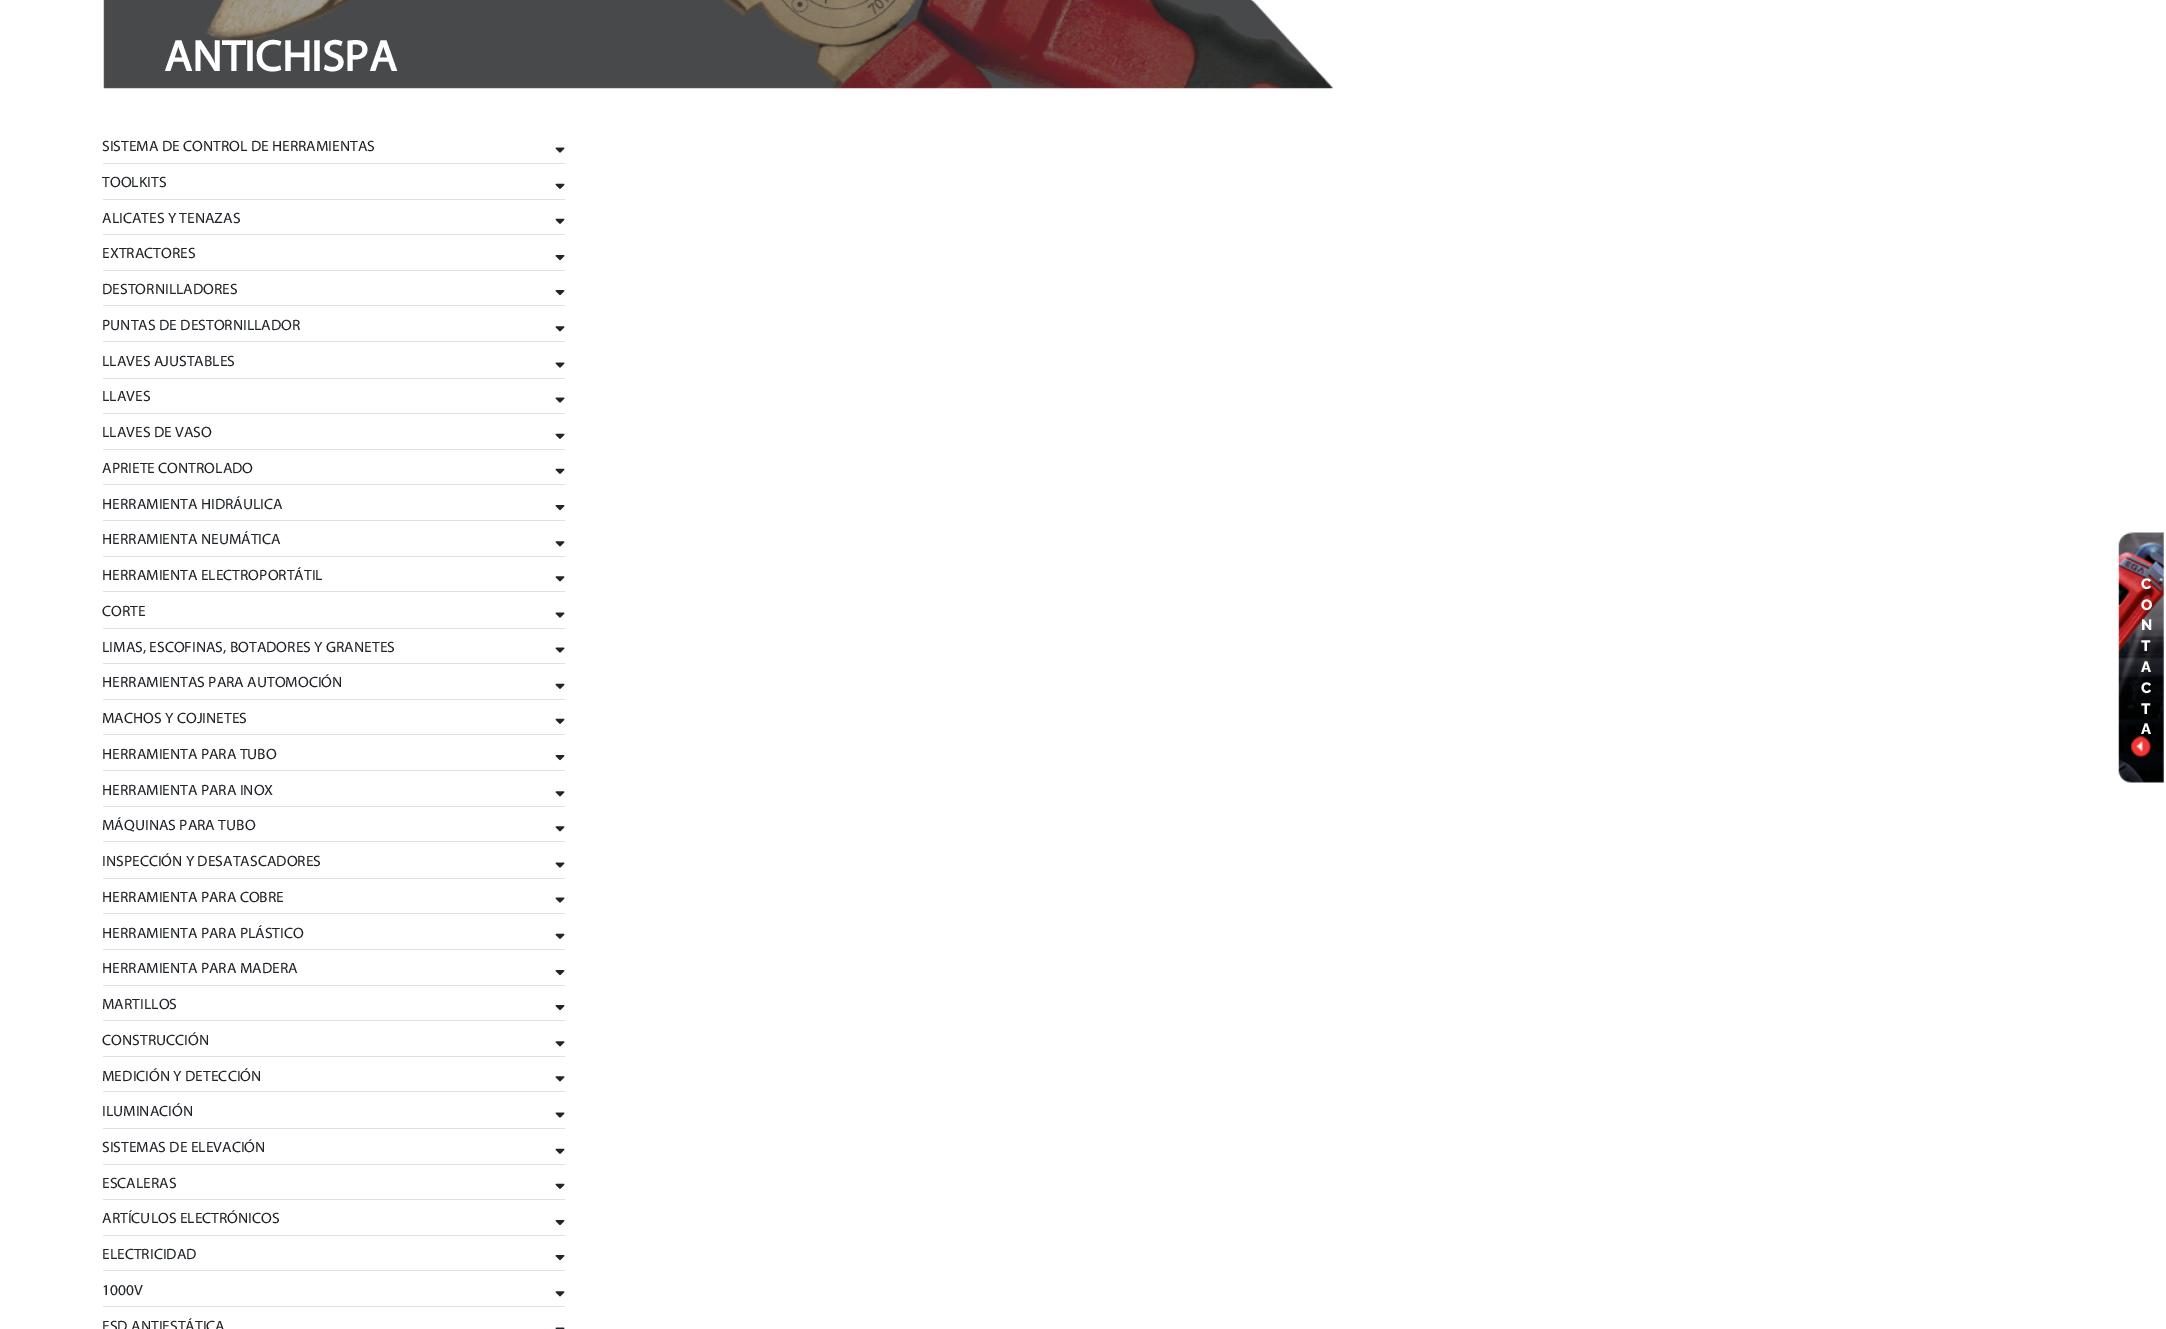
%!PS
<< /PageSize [2166 1329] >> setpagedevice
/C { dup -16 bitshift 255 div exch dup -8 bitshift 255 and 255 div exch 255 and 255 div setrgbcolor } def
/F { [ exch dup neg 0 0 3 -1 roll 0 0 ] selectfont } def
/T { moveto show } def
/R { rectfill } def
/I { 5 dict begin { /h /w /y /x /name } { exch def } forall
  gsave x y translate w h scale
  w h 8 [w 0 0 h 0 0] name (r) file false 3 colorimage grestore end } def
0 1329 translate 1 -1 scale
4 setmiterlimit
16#FFFFFF C
0 0 2166 1329 R
(1.rgb) 103 0 1231 89 I
/Myriad-Bold 43.75 F
(ANTICHISPA) 164 71 T
16#E1E1E2 C
103 163 462 1 R
/Myriad-Regular 15 F
16#212529 C
(SISTEMA DE CONTROL DE HERRAMIENTAS) 102 151 T
(2.rgb) 555 147 10 6 I
16#E1E1E2 C
103 199 462 1 R
16#212529 C
(TOOLKITS) 102 187 T
(3.rgb) 555 183 10 6 I
16#E1E1E2 C
103 234 462 1 R
16#212529 C
(ALICATES Y TENAZAS) 102 223 T
(3.rgb) 555 218 10 6 I
16#E1E1E2 C
103 270 462 1 R
16#212529 C
(EXTRACTORES) 102 258 T
(4.rgb) 555 255 10 6 I
16#E1E1E2 C
103 305 462 1 R
16#212529 C
(DESTORNILLADORES) 102 294 T
(4.rgb) 555 290 10 6 I
16#E1E1E2 C
103 341 462 1 R
16#212529 C
(PUNTAS DE DESTORNILLADOR) 102 330 T
(5.rgb) 555 326 10 6 I
16#E1E1E2 C
103 378 462 1 R
16#212529 C
(LLAVES AJUSTABLES) 102 366 T
(2.rgb) 555 362 10 6 I
16#E1E1E2 C
103 413 462 1 R
16#212529 C
(LLAVES) 102 401 T
(2.rgb) 555 397 10 6 I
16#E1E1E2 C
103 449 462 1 R
16#212529 C
(LLAVES DE VASO) 102 437 T
(3.rgb) 555 433 10 6 I
16#E1E1E2 C
103 484 462 1 R
16#212529 C
(APRIETE CONTROLADO) 102 473 T
(3.rgb) 555 468 10 6 I
16#E1E1E2 C
103 520 462 1 R
16#212529 C
(HERRAMIENTA HIDRÁULICA) 102 509 T
(4.rgb) 555 505 10 6 I
16#E1E1E2 C
103 556 462 1 R
16#212529 C
(HERRAMIENTA NEUMÁTICA) 102 544 T
(5.rgb) 555 541 10 6 I
16#E1E1E2 C
103 591 462 1 R
16#212529 C
(HERRAMIENTA ELECTROPORTÁTIL) 102 580 T
(5.rgb) 555 576 10 6 I
16#E1E1E2 C
103 628 462 1 R
16#212529 C
(CORTE) 102 616 T
(2.rgb) 555 612 10 6 I
16#E1E1E2 C
103 663 462 1 R
16#212529 C
(LIMAS, ESCOFINAS, BOTADORES Y GRANETES) 102 652 T
(2.rgb) 555 647 10 6 I
16#E1E1E2 C
103 699 462 1 R
16#212529 C
(HERRAMIENTAS PARA AUTOMOCIÓN) 102 687 T
(3.rgb) 555 683 10 6 I
16#E1E1E2 C
103 734 462 1 R
16#212529 C
(MACHOS Y COJINETES) 102 723 T
(3.rgb) 555 718 10 6 I
16#E1E1E2 C
103 770 462 1 R
16#212529 C
(HERRAMIENTA PARA TUBO) 102 759 T
(4.rgb) 555 755 10 6 I
16#E1E1E2 C
103 806 462 1 R
16#212529 C
(HERRAMIENTA PARA INOX) 102 795 T
(5.rgb) 555 791 10 6 I
16#E1E1E2 C
103 841 462 1 R
16#212529 C
(MÁQUINAS PARA TUBO) 102 830 T
(5.rgb) 555 826 10 6 I
16#E1E1E2 C
103 878 462 1 R
16#212529 C
(INSPECCIÓN Y DESATASCADORES) 102 866 T
(2.rgb) 555 862 10 6 I
16#E1E1E2 C
103 913 462 1 R
16#212529 C
(HERRAMIENTA PARA COBRE) 102 902 T
(2.rgb) 555 897 10 6 I
16#E1E1E2 C
103 949 462 1 R
16#212529 C
(HERRAMIENTA PARA PLÁSTICO) 102 938 T
(3.rgb) 555 933 10 6 I
16#E1E1E2 C
103 985 462 1 R
16#212529 C
(HERRAMIENTA PARA MADERA) 102 973 T
(4.rgb) 555 970 10 6 I
16#E1E1E2 C
103 1020 462 1 R
16#212529 C
(MARTILLOS) 102 1009 T
(4.rgb) 555 1005 10 6 I
16#E1E1E2 C
103 1056 462 1 R
16#212529 C
(CONSTRUCCIÓN) 102 1045 T
(5.rgb) 555 1041 10 6 I
16#E1E1E2 C
103 1091 462 1 R
16#212529 C
(MEDICIÓN Y DETECCIÓN) 102 1081 T
(5.rgb) 555 1076 10 6 I
16#E1E1E2 C
103 1128 462 1 R
16#212529 C
(ILUMINACIÓN) 102 1116 T
(2.rgb) 555 1112 10 6 I
16#E1E1E2 C
103 1164 462 1 R
16#212529 C
(SISTEMAS DE ELEVACIÓN) 102 1152 T
(3.rgb) 555 1148 10 6 I
16#E1E1E2 C
103 1199 462 1 R
16#212529 C
(ESCALERAS) 102 1188 T
(3.rgb) 555 1183 10 6 I
16#E1E1E2 C
103 1235 462 1 R
16#212529 C
(ARTÍCULOS ELECTRÓNICOS) 102 1223 T
(4.rgb) 555 1220 10 6 I
16#E1E1E2 C
103 1270 462 1 R
16#212529 C
(ELECTRICIDAD) 102 1259 T
(4.rgb) 555 1255 10 6 I
16#E1E1E2 C
103 1306 462 1 R
16#212529 C
(1000V) 102 1295 T
(5.rgb) 555 1291 10 6 I
(ESD ANTIESTÁTICA) 102 1331 T
(6.rgb) 555 1327 10 2 I
(7.rgb) 2118 532 46 251 I
/Raleway-ExtraBold 15 F
16#FFFFFF C
(C) 2141 589 T
(O) 2141 610 T
(N) 2141 630 T
(T) 2141 651 T
(A) 2141 672 T
(C) 2141 693 T
(T) 2141 714 T
(A) 2141 734 T
showpage
